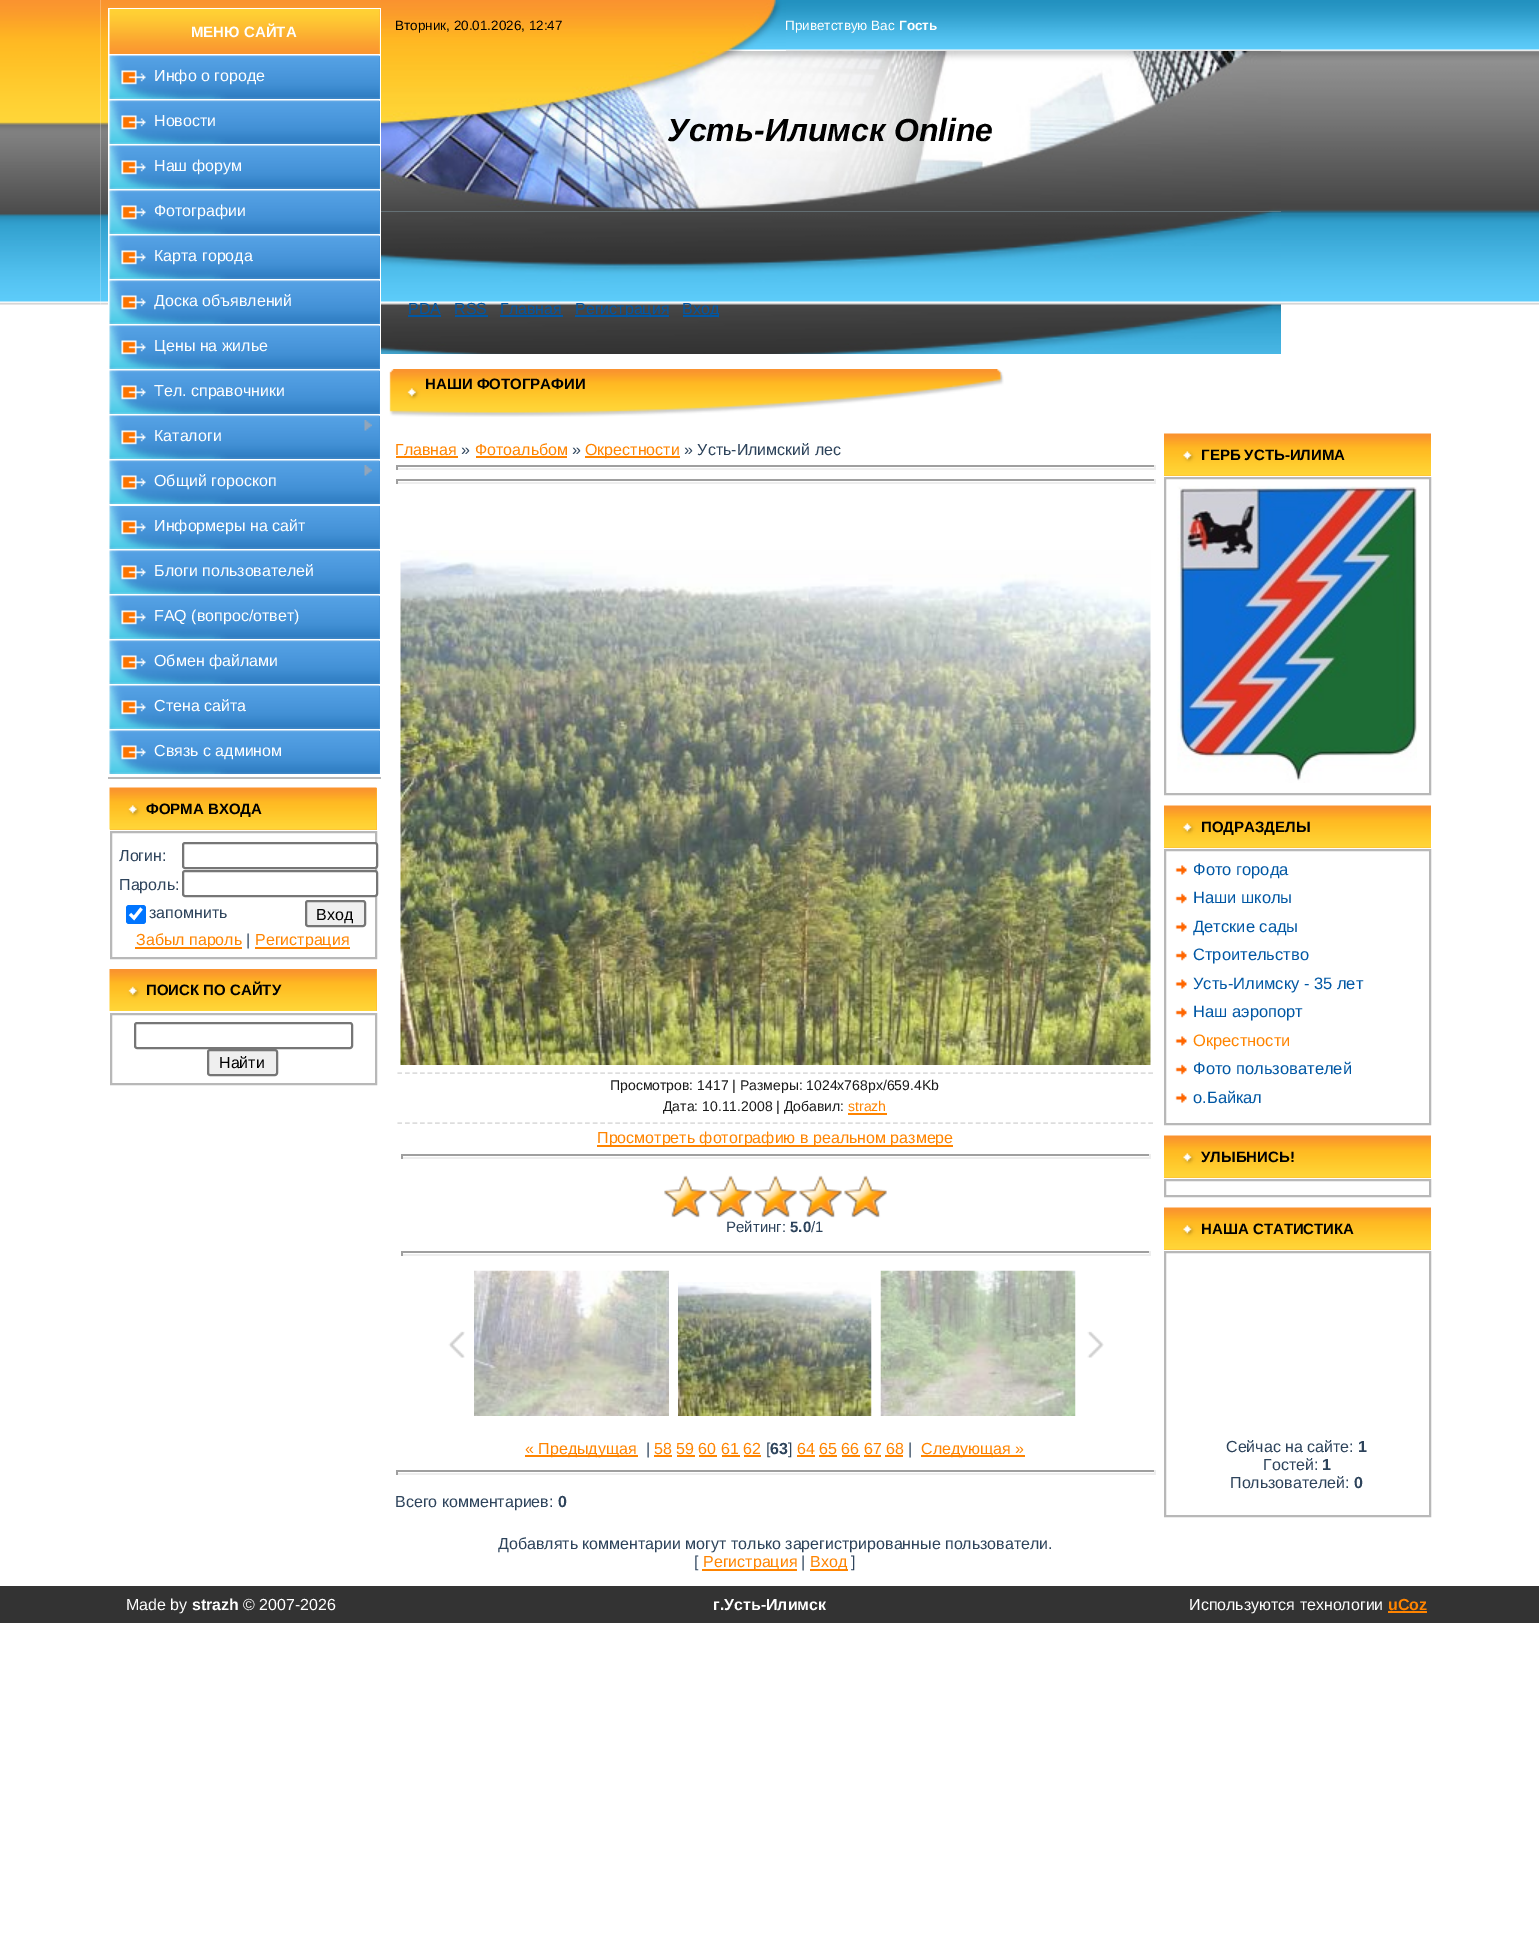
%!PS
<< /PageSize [1539 1934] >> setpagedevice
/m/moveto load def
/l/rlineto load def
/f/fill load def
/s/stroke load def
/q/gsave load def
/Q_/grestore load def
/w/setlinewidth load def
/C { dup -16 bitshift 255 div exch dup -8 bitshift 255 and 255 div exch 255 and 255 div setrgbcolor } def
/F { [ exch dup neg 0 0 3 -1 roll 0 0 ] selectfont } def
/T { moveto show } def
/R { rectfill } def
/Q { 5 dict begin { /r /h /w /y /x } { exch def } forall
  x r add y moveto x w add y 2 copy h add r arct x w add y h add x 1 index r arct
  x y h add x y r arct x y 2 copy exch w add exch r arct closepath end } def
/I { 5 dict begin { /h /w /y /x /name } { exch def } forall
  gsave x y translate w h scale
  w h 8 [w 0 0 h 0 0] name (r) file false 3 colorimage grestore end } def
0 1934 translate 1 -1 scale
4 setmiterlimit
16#FFFFFF C
0 0 1539 1934 R
(1.rgb) 0 0 101 305 I
(2.rgb) 100 0 281 305 I
108 8 273 297 R
16#B8B8B8 C
108 777 273 2 R
16#FDB732 C
379 9 1 45 R
(3.rgb) 109 9 271 45 I
/LiberationSans-Bold 15 F
16#FFFFFF C
(МЕНЮ САЙТА) 191 37 T
16#4593D8 C
379 56 1 43 R
(4.rgb) 109 55 271 44 I
/LiberationSans-Regular 16 F
16#FFFFFF C
(Инфо о городе) 154 81 T
16#4593D8 C
379 101 1 43 R
(4.rgb) 109 100 271 44 I
16#FFFFFF C
(Новости) 154 126 T
16#4593D8 C
379 146 1 43 R
(4.rgb) 109 145 271 44 I
16#FFFFFF C
(Наш форум) 154 171 T
16#4593D8 C
379 191 1 43 R
(4.rgb) 109 190 271 44 I
16#FFFFFF C
(Фотографии) 154 216 T
16#4593D8 C
379 236 1 43 R
(4.rgb) 109 235 271 44 I
16#FFFFFF C
(Карта города) 154 261 T
16#4593D8 C
379 281 1 43 R
(4.rgb) 109 280 271 44 I
16#FFFFFF C
(Доска объявлений) 154 306 T
16#4593D8 C
379 326 1 43 R
(4.rgb) 109 325 271 44 I
16#FFFFFF C
(Цены на жилье) 154 351 T
16#4593D8 C
379 371 1 43 R
(4.rgb) 109 370 271 44 I
16#FFFFFF C
(Тел. справочники) 154 396 T
16#4593D8 C
379 416 1 43 R
(4.rgb) 109 415 271 44 I
(5.rgb) 364 420 8 11 I
16#FFFFFF C
(Каталоги) 154 441 T
16#4593D8 C
379 461 1 43 R
(4.rgb) 109 460 271 44 I
379 506 1 43 R
(4.rgb) 109 505 271 44 I
16#FFFFFF C
110 505 270 1 R
(5.rgb) 364 465 8 11 I
(Общий гороскоп) 154 486 T
(Информеры на сайт) 154 531 T
16#4593D8 C
379 551 1 43 R
(4.rgb) 109 550 271 44 I
16#FFFFFF C
(Блоги пользователей) 154 576 T
16#4593D8 C
379 596 1 43 R
(4.rgb) 109 595 271 44 I
16#FFFFFF C
(FAQ \(вопрос/ответ\)) 154 621 T
16#4593D8 C
379 641 1 43 R
(4.rgb) 109 640 271 44 I
16#FFFFFF C
(Обмен файлами) 154 666 T
16#4593D8 C
379 686 1 43 R
(4.rgb) 109 685 271 44 I
16#FFFFFF C
(Стена сайта) 154 711 T
16#4593D8 C
379 731 1 43 R
(4.rgb) 109 730 271 44 I
16#FFFFFF C
(Связь с админом) 154 756 T
16#FDB732 C
110 788 267 42 R
(6.rgb) 109 787 268 43 I
/LiberationSans-Bold 15 F
16#000000 C
(ФОРМА ВХОДА) 146 814 T
16#B8B8B8 C
2 w
111 832 265 126 rectstroke
/LiberationSans-Regular 16 F
16#2D435B C
(Логин:) 119 861 T
16#FFFFFF C
183 843 194 25 2 Q q f Q_
16#767676 C
s
16#2D435B C
(Пароль:) 119 890 T
16#FFFFFF C
183 871 194 25 2 Q q f Q_
16#767676 C
s
16#0075FF C
126 905 20 19 3 Q f
16#FFFFFF C
3.1 w
130 914 m 4 4 l 7.5 -9.5 l s
16#2D435B C
(запомнить) 149 918 T
16#EFEFEF C
306 901 59 25 2 Q q f Q_
16#767676 C
2 w
s
16#000000 C
(Вход) 316 920 T
16#FF8400 C
135 947 107 2 R
(Забыл пароль) 136 945 T
16#2D435B C
(|) 246 945 T
16#FF8400 C
255 947 95 2 R
(Регистрация) 255 945 T
16#FDB732 C
376 969 1 42 R
(7.rgb) 109 969 268 42 I
/LiberationSans-Bold 15 F
16#000000 C
(ПОИСК ПО САЙТУ) 146 995 T
16#B8B8B8 C
111 1014 265 70 rectstroke
16#767676 C
135 1023 217 25 2 Q s
16#EFEFEF C
208 1050 69 25 2 Q q f Q_
16#767676 C
s
/LiberationSans-Regular 16 F
16#000000 C
(Найти) 219 1068 T
(8.rgb) 381 0 1059 305 I
(9.rgb) 381 0 405 51 I
/LiberationSans-Regular 13.5 F
(Вторник, 20.01.2026, 12:47) 395 30 T
16#FFFFFF C
(Приветствую Вас) 785 30 T
/LiberationSans-Bold 13.5 F
(Гость) 899 30 T
(10.rgb) 381 51 900 161 I
/LiberationSans-BoldItalic 32 F
16#000000 C
(Усть-Илимск Online) 667 141 T
(11.rgb) 381 211 900 143 I
/LiberationSans-Regular 16 F
16#0057A4 C
(PDA) 408 314 T
408 315 33 2 R
(RSS) 454 314 T
455 315 33 2 R
(Главная) 500 314 T
500 315 63 2 R
575 315 94 2 R
(Регистрация) 575 314 T
683 315 36 2 R
(Вход) 682 314 T
(12.rgb) 389 369 615 48 I
/LiberationSans-Bold 15 F
16#000000 C
(НАШИ ФОТОГРАФИИ) 425 389 T
/LiberationSans-Regular 16 F
16#FF8400 C
(Главная) 395 455 T
396 456 62 2 R
16#2D435B C
(») 461 455 T
16#FF8400 C
(Фотоальбом) 475 455 T
476 456 91 2 R
16#2D435B C
(») 572 455 T
16#FF8400 C
585 456 95 2 R
(Окрестности) 585 455 T
16#2D435B C
(» Усть-Илимский лес) 684 455 T
16#9F9F9F C
396 465 759 2 R
16#EEEEEE C
1154 465 2 5 R
396 468 759 2 R
16#9F9F9F C
396 465 2 5 R
396 479 759 2 R
16#EEEEEE C
1154 479 2 5 R
396 482 759 2 R
16#9F9F9F C
396 479 2 5 R
(13.rgb) 400 550 751 515 I
16#DDDDDD C
1.5 w
[4.5 3.01] 0 setdash
397.5 1073 m 756 0 l s
397.5 1123 m 756 0 l s
/LiberationSans-Regular 14 F
16#1A1A1A C
(Просмотров: 1417 | Размеры: 1024x768px/659.4Kb) 610 1090 T
(Дата: 10.11.2008 | Добавил:) 663 1111 T
16#FF8400 C
(strazh) 848 1111 T
848 1113 39 2 R
597 1145 356 2 R
/LiberationSans-Regular 16 F
(Просмотреть фотографию в реальном размере) 597 1143 T
16#9F9F9F C
401 1154 750 2 R
16#EEEEEE C
1149 1154 2 5 R
401 1157 750 2 R
16#9F9F9F C
401 1154 2 5 R
(14.rgb) 664 1176 223 41 I
(15.rgb) 664 1175 223 43 I
/LiberationSans-Regular 15 F
16#2D435B C
(Рейтинг:) 726 1232 T
/LiberationSans-Bold 15 F
(5.0) 790 1232 T
/LiberationSans-Regular 15 F
(/1) 811 1232 T
16#9F9F9F C
401 1251 750 2 R
16#EEEEEE C
1149 1251 2 5 R
401 1254 750 2 R
16#9F9F9F C
401 1251 2 5 R
(16.rgb) 448 1331 17 27 I
(17.rgb) 474 1270 195 146 I
(18.rgb) 678 1282 194 134 I
(19.rgb) 880 1270 196 146 I
(20.rgb) 1087 1331 17 27 I
16#FF8400 C
525 1455 113 2 R
/LiberationSans-Regular 16 F
(« Предыдущая) 525 1454 T
16#2D435B C
(|) 646 1454 T
16#FF8400 C
(58 59 60 61 62) 654 1454 T
654 1455 18 2 R
16#2D435B C
([) 766 1454 T
/LiberationSans-Bold 16 F
(63) 770 1454 T
/LiberationSans-Regular 16 F
(]) 788 1454 T
16#FF8400 C
(64 65 66 67 68) 797 1454 T
797 1455 18 2 R
16#2D435B C
(|) 908 1454 T
16#FF8400 C
921 1455 104 2 R
(Следующая ») 921 1454 T
677 1455 18 2 R
699 1455 18 2 R
722 1455 18 2 R
744 1455 17 2 R
819 1455 18 2 R
842 1455 18 2 R
864 1455 17 2 R
885 1455 18 2 R
16#9F9F9F C
396 1470 759 2 R
16#EEEEEE C
1154 1470 2 5 R
396 1473 759 2 R
16#9F9F9F C
396 1470 2 5 R
16#2D435B C
(Всего комментариев:) 395 1507 T
/LiberationSans-Bold 16 F
(0) 558 1507 T
/LiberationSans-Regular 16 F
(Добавлять комментарии могут только зарегистрированные пользователи.) 498 1549 T
([) 694 1567 T
16#FF8400 C
702 1569 95 2 R
(Регистрация) 703 1567 T
16#2D435B C
(|) 801 1567 T
16#FF8400 C
810 1569 38 2 R
(Вход) 810 1567 T
16#2D435B C
(]) 851 1567 T
16#FDB732 C
1164 475 267 1 R
(21.rgb) 1164 433 267 43 I
/LiberationSans-Bold 15 F
16#000000 C
(ГЕРБ УСТЬ-ИЛИМА) 1201 460 T
16#B8B8B8 C
2 w
[] 0 setdash
1165 478 265 316 rectstroke
(22.rgb) 1177 486 240 297 I
16#FDB732 C
1164 847 267 1 R
(21.rgb) 1164 805 267 43 I
16#000000 C
(ПОДРАЗДЕЛЫ) 1201 832 T
16#B8B8B8 C
1165 850 265 274 rectstroke
(23.rgb) 1175 865 12 10 I
/LiberationSans-Regular 16.5 F
16#0057A4 C
(Фото города) 1193 875 T
(24.rgb) 1175 893 12 11 I
(Наши школы) 1193 903 T
(23.rgb) 1175 922 12 10 I
(Детские сады) 1193 932 T
(24.rgb) 1175 950 12 11 I
(Строительство) 1193 960 T
(23.rgb) 1175 979 12 10 I
(Усть-Илимску - 35 лет) 1193 989 T
(24.rgb) 1175 1007 12 11 I
(Наш аэропорт) 1193 1017 T
(23.rgb) 1175 1036 12 10 I
16#FF8400 C
(Окрестности) 1193 1046 T
(24.rgb) 1175 1064 12 11 I
16#0057A4 C
(Фото пользователей) 1193 1074 T
(23.rgb) 1175 1093 12 10 I
(о.Байкал) 1193 1103 T
16#FDB732 C
1164 1177 267 1 R
(21.rgb) 1164 1135 267 43 I
/LiberationSans-Bold 15 F
16#000000 C
(УЛЫБНИСЬ!) 1201 1162 T
16#B8B8B8 C
1165 1180 265 16 rectstroke
16#FDB732 C
1164 1249 267 1 R
(21.rgb) 1164 1207 267 43 I
16#000000 C
(НАША СТАТИСТИКА) 1201 1234 T
16#B8B8B8 C
1165 1252 265 264 rectstroke
/LiberationSans-Regular 16 F
16#2D435B C
(Сейчас на сайте:) 1226 1452 T
/LiberationSans-Bold 16 F
(1) 1358 1452 T
/LiberationSans-Regular 16 F
(Гостей:) 1263 1470 T
/LiberationSans-Bold 16 F
(1) 1322 1470 T
/LiberationSans-Regular 16 F
(Пользователей:) 1230 1488 T
/LiberationSans-Bold 16 F
(0) 1354 1488 T
(25.rgb) 1440 0 99 305 I
16#333333 C
0 1586 1539 37 R
/LiberationSans-Regular 16 F
16#FFFFFF C
(Made by) 126 1610 T
/LiberationSans-Bold 16 F
(strazh) 192 1610 T
/LiberationSans-Regular 16 F
(© 2007-2026) 243 1610 T
/LiberationSans-Bold 16 F
(г.Усть-Илимск) 713 1610 T
/LiberationSans-Regular 16 F
(Используются технологии) 1189 1610 T
/LiberationSans-Bold 16 F
16#FF8400 C
(uCoz) 1388 1610 T
1388 1611 39 2 R
showpage
